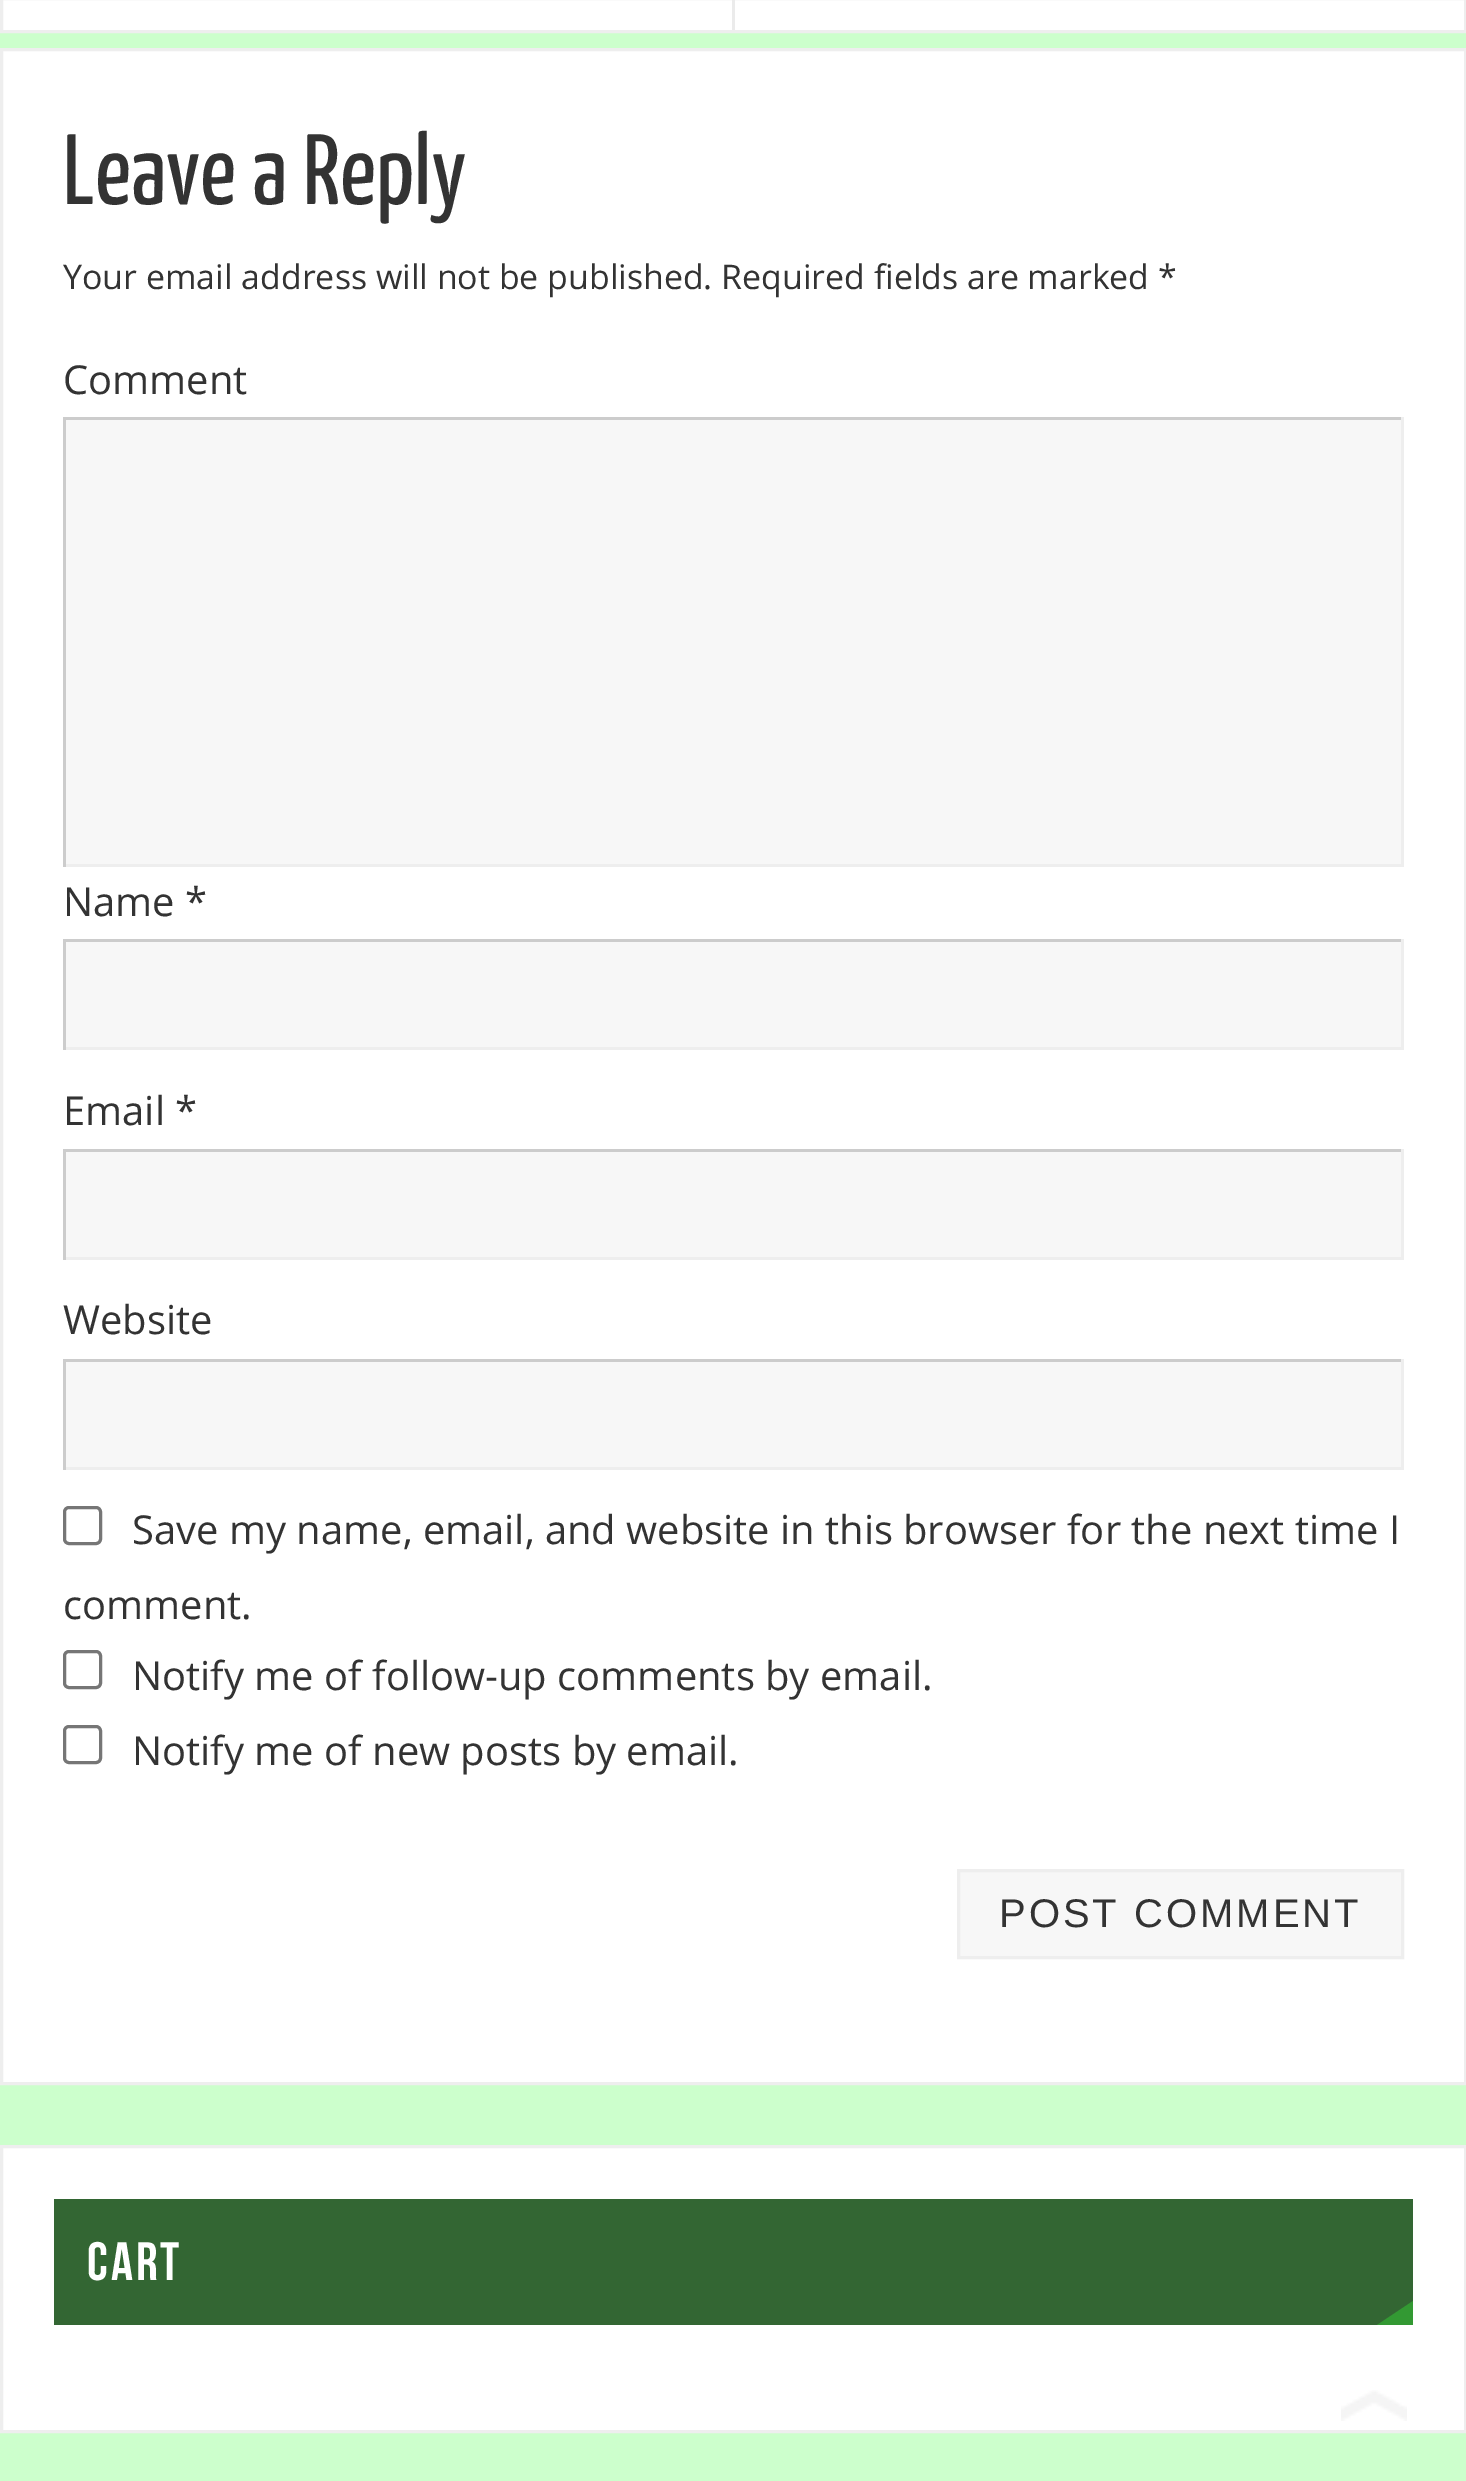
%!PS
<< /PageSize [1466 2481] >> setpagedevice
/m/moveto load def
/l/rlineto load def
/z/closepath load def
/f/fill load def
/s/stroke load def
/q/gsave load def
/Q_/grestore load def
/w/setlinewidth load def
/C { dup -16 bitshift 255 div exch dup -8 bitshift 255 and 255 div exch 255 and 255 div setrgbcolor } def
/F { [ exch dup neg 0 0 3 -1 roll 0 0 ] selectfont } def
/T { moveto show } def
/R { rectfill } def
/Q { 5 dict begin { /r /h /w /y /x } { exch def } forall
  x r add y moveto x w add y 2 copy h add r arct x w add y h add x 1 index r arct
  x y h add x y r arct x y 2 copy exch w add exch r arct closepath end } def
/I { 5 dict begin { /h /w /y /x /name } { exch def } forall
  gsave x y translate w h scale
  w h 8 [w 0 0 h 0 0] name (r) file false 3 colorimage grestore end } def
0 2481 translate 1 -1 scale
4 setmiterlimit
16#CCFFCC C
0 0 1466 2481 R
16#FFFFFF C
1.5 -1.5 m 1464 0 l 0 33 l -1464 0 l z q f Q_
16#EEEEEE C
3 w
s
16#EBEBEB C
732 0 3 30 R
16#FFFFFF C
1.5 49.5 m 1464 0 l 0 2034 l -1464 0 l z q f Q_
16#EEEEEE C
s
/YanoneKaffeesatz-Regular 99.75 F
16#333333 C
(Leave a Reply) 63 204 T
/OpenSans-Regular 33.9 F
(Your email address will not be published.) 63 289 T
(Required fields are marked *) 721 289 T
/OpenSans-Regular 39.9 F
(Comment) 63 394 T
16#F7F7F7 C
66 420 1335 444 R
16#CCCCCC C
63 417 1341 3 R
16#EEEEEE C
1401 417 3 450 R
63 864 1341 3 R
16#CCCCCC C
63 417 3 450 R
16#333333 C
(Name *) 63 916 T
16#F7F7F7 C
66 942 1335 105 R
16#CCCCCC C
63 939 1341 3 R
16#EEEEEE C
1401 939 3 111 R
63 1047 1341 3 R
16#CCCCCC C
63 939 3 111 R
16#333333 C
(Email *) 63 1125 T
16#F7F7F7 C
66 1152 1335 105 R
16#CCCCCC C
63 1149 1341 3 R
16#EEEEEE C
1401 1149 3 111 R
63 1257 1341 3 R
16#CCCCCC C
63 1149 3 111 R
16#333333 C
(Website) 63 1334 T
16#F7F7F7 C
66 1362 1335 105 R
16#CCCCCC C
63 1359 1341 3 R
16#EEEEEE C
1401 1359 3 111 R
63 1467 1341 3 R
16#CCCCCC C
63 1359 3 111 R
16#767676 C
64.5 1507.5 36 36 4.5 Q s
16#333333 C
(Save my name, email, and website in this browser for the next time I) 132 1544 T
(comment.) 63 1619 T
16#767676 C
64.5 1651.5 36 36 4.5 Q s
16#333333 C
(Notify me of follow-up comments by email.) 132 1690 T
16#767676 C
64.5 1726.5 36 36 4.5 Q s
16#333333 C
(Notify me of new posts by email.) 132 1765 T
16#F7F7F7 C
958.5 1870.5 m 444 0 l 0 87 l -444 0 l z q f Q_
16#EEEEEE C
s
/LiberationSans-Regular 40 F
16#333333 C
999 1927 m 3 0 (POST COMMENT) ashow
16#FFFFFF C
1.5 2146.5 m 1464 0 l 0 285 l -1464 0 l z q f Q_
16#EEEEEE C
s
16#336633 C
54 2199 1359 126 R
/BebasNeue-Regular 54 F
16#FFFFFF C
87 2280 m 3 0 (CART) ashow
16#339933 C
1413 2325 m -36 0 l 36 -24 l z f
(1.rgb) 1341 2390 66 31 I
showpage
